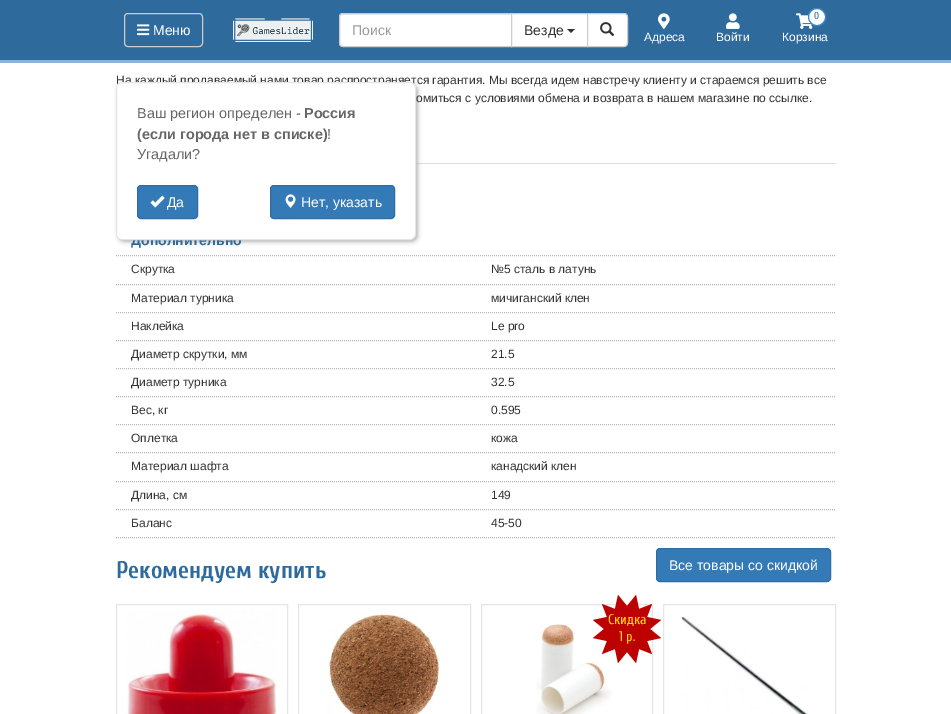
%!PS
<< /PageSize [951 714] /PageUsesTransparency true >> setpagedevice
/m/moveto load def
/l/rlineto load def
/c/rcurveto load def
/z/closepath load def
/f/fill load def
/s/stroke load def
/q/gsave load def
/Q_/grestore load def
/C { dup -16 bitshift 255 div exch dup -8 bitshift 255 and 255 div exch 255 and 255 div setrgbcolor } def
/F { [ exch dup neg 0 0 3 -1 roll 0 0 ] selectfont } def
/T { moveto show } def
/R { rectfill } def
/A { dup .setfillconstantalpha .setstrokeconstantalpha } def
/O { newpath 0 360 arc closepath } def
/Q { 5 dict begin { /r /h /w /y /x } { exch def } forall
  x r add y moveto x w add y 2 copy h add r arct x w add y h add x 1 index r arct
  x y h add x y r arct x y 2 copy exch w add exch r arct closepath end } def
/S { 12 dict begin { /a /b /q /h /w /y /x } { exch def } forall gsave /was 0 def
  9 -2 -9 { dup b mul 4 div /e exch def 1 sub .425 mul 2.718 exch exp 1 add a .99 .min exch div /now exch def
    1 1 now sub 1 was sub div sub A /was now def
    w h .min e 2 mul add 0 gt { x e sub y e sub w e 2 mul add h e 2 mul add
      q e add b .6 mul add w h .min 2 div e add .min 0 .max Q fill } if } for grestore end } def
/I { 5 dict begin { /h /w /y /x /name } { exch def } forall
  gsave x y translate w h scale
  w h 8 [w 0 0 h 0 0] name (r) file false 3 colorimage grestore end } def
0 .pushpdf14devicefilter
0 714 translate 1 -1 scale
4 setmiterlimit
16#FFFFFF C
0 0 951 714 R
16#2E6A9C C
0 0 951 60 R
16#87B5DC C
0 60 951 3 R
16#CCCCCC C
124.5 13.5 78 33 3.5 Q s
(1.rgb) 137 24 13 12 I
/LiberationSans-Regular 14 F
16#FFFFFF C
(Меню) 153 35 T
(2.rgb) 233 18 80 24 I
343 13 m 169 0 l 0 34 l -169 0 l -2 0 -4 -2 -4 -4 c 0 -26 l 0 -2 2 -4 4 -4 c z f
16#ECECEC C
343 15 m 168 0 l 0 -1 l -169 0 l -2 0 -2 2 -2 4 c 0 -2 1 -3 3 -3 c z f
16#CCCCCC C
343 13.5 m 168.5 0 l 0 33 l -168.5 0 l -2 0 -3.5 -1.5 -3.5 -3.5 c 0 -26 l 0 -2 1.5 -3.5 3.5 -3.5 c z s
16#999999 C
(Поиск) 352 35 T
16#FFFFFF C
511.5 13.5 m 76 0 l 0 33 l -76 0 l z q f Q_
16#CCCCCC C
s
16#333333 C
(Везде) 524 35 T
567 29 m 8 0 l -4 4 l z f
16#FFFFFF C
587.5 13.5 m 36.5 0 l 2 0 3.5 1.5 3.5 3.5 c 0 26 l 0 2 -1.5 3.5 -3.5 3.5 c -36.5 0 l z q f Q_
16#CCCCCC C
s
(3.rgb) 600 22 15 14 I
(4.rgb) 658 13 12 16 I
/LiberationSans-Regular 12 F
16#FFFFFF C
(Адреса) 644 41 T
(5.rgb) 726 13 14 16 I
(Войти) 716 41 T
(6.rgb) 796 13 17 16 I
817 17 8.5 O q f Q_
16#3A85C3 C
s
/Cuprum-Regular 10 F
16#2E6A9C C
(0) 814 19 T
/LiberationSans-Regular 12 F
16#FFFFFF C
(Корзина) 782 41 T
16#DDDDDD C
416 163 420 1 R
16#999999 C
119 85 298 156 5 2.5 1 S
16#333333 C
(На каждый продаваемый нами товар распространяется гарантия. Мы всегда идем навстречу клиенту и стараемся решить все) 116 84 T
/LiberationSans-Bold 14 F
16#2E6A9C C
(Дополнительно) 131 245 T
16#FFFFFF C
116.5 82.5 299 157 5.5 Q q f Q_
16#E5E5E5 C
s
/LiberationSans-Regular 14.4 F
16#666666 C
(Ваш регион определен -) 137 118 T
/LiberationSans-Bold 14.4 F
(Россия) 304 118 T
(\(если города нет в списке\)) 137 139 T
/LiberationSans-Regular 14.4 F
(!) 327 139 T
(Угадали?) 137 159 T
16#337AB7 C
137.5 185.5 60 33 3.5 Q q f Q_
16#2E6DA4 C
s
(7.rgb) 150 195 15 13 I
/LiberationSans-Regular 14 F
16#FFFFFF C
(Да) 167 207 T
16#337AB7 C
270.5 185.5 124 33 3.5 Q q f Q_
16#2E6DA4 C
s
(8.rgb) 285 194 11 14 I
16#FFFFFF C
(Нет, указать) 301 207 T
/LiberationSans-Regular 12 F
16#333333 C
(омиться с условиями обмена и возврата в нашем магазине по ссылке.) 416 102 T
16#B3B3B3 C
[1 1] 0 setdash
116 255.5 m 720 0 l s
116 284.5 m 720 0 l s
16#333333 C
(Скрутка) 131 273 T
(№5 сталь в латунь) 491 273 T
16#B3B3B3 C
116 312.5 m 720 0 l s
16#333333 C
(Материал турника) 131 302 T
(мичиганский клен) 491 302 T
16#B3B3B3 C
116 340.5 m 720 0 l s
16#333333 C
(Наклейка) 131 330 T
(Le pro) 491 330 T
16#B3B3B3 C
116 368.5 m 720 0 l s
16#333333 C
(Диаметр скрутки, мм) 131 358 T
(21.5) 491 358 T
16#B3B3B3 C
116 396.5 m 720 0 l s
16#333333 C
(Диаметр турника) 131 386 T
(32.5) 491 386 T
16#B3B3B3 C
116 424.5 m 720 0 l s
16#333333 C
(Вес, кг) 131 414 T
(0.595) 491 414 T
16#B3B3B3 C
116 452.5 m 720 0 l s
16#333333 C
(Оплетка) 131 442 T
(кожа) 491 442 T
16#B3B3B3 C
116 481.5 m 720 0 l s
16#333333 C
(Материал шафта) 131 470 T
(канадский клен) 491 470 T
16#B3B3B3 C
116 509.5 m 720 0 l s
16#333333 C
(Длина, см) 131 499 T
(149) 491 499 T
16#B3B3B3 C
116 537.5 m 720 0 l s
16#333333 C
(Баланс) 131 527 T
(45-50) 491 527 T
/Cuprum-Bold 24 F
16#2E6A9C C
(Рекомендуем купить) 116 578 T
16#E5E5E5 C
[] 0 setdash
116.5 604.5 171 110 rectstroke
(9.rgb) 127 610 150 104 I
298.5 604.5 172 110 rectstroke
(10.rgb) 327 612 113 102 I
481.5 604.5 171 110 rectstroke
(11.rgb) 536 624 77 90 I
16#BD0000 C
639 609 m 13 -5 l -5 13 l 14 3 l -11 9 l 11 9 l -14 3 l 5 13 l -13 -5 l -3 14 l -9 -11 l -9 11 l -3 -14 l -13 5 l 5 -13 l -14 -3 l 11 -9 l -11 -9 l 14 -3 l -5 -13 l 13 5 l 3 -14 l 9 11 l 9 -11 l z f
/Cuprum-Regular 14 F
16#FFDC00 C
(Скидка) 608 624 T
(1 р.) 619 641 T
16#E5E5E5 C
663.5 604.5 172 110 rectstroke
(12.rgb) 681 616 127 98 I
16#337AB7 C
656.5 548.5 174 33 3.5 Q q f Q_
16#2E6DA4 C
s
/LiberationSans-Regular 14 F
16#FFFFFF C
(Все товары со скидкой) 669 570 T
.poppdf14devicefilter showpage
